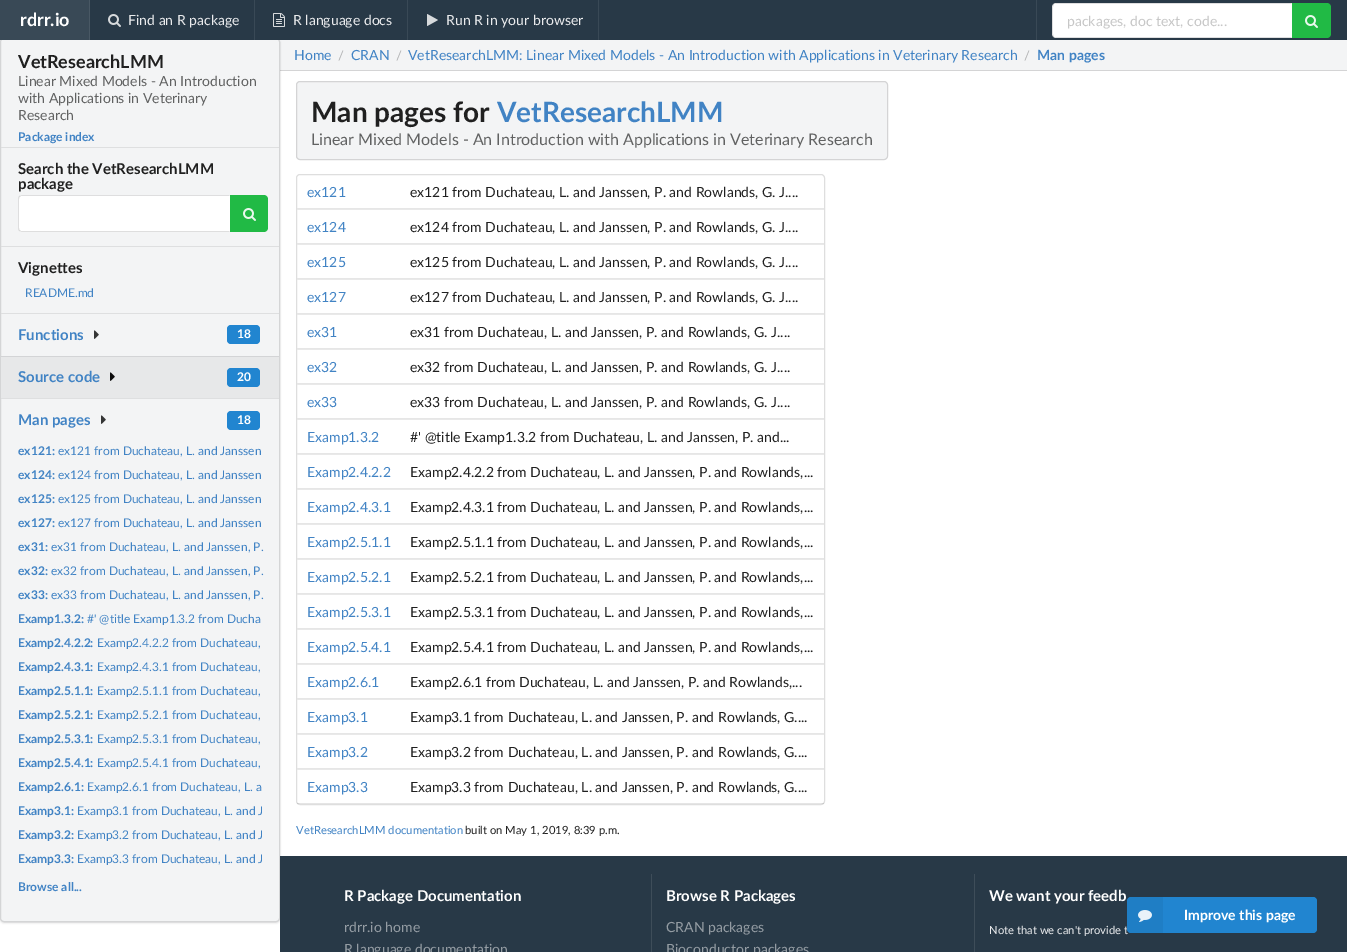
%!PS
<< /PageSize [1347 952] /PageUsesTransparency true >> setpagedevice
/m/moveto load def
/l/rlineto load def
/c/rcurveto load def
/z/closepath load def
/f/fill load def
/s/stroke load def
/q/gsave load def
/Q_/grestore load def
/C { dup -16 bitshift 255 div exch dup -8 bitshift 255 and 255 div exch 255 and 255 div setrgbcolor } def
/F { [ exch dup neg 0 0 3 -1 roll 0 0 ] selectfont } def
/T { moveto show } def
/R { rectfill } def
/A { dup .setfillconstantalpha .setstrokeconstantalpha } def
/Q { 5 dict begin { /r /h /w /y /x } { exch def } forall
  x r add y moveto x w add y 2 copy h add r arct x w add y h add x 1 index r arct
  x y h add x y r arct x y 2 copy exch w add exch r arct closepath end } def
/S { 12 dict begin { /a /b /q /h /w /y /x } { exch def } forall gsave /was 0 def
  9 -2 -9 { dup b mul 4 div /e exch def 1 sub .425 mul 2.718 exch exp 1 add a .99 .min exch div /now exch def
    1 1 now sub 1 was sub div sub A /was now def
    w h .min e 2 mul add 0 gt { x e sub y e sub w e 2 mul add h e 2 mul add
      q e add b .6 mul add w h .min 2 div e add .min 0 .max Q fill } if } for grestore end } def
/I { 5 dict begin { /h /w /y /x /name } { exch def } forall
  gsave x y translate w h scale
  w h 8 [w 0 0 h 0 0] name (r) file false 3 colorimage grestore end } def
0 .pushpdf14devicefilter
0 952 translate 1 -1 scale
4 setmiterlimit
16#FFFFFF C
0 0 1347 952 R
16#F3F4F5 C
280 40 1067 30 R
16#D4D4D5 C
280 70 1067 1 R
16#222426 C
0 39 280 884 4 1 .15 S
16#F3F4F5 C
0 38 280 884 4 Q f
0.15 A
16#222426 C
.5 38.5 279 883 3.5 Q s
1 A
16#283947 C
90 0 1257 40 R
16#394956 C
0 0 89 40 R
/Lato-Bold 18 F
16#FFFFFF C
(rdrr.io) 20 26 T
16#495864 C
89 0 1 40 R
(1.rgb) 108 14 13 13 I
/Lato-Regular 14 F
16#EAEBED C
(Find an R package) 128 25 T
16#394956 C
254 0 1 40 R
(2.rgb) 273 13 12 14 I
16#EAEBED C
(R language docs) 293 25 T
16#394956 C
407 0 1 40 R
(3.rgb) 427 14 11 12 I
16#EAEBED C
(Run R in your browser) 446 25 T
16#394956 C
598 0 1 40 R
1036 0 1 40 R
16#FFFFFF C
1056 3 m 236 0 l 0 35 l -236 0 l -2 0 -4 -2 -4 -4 c 0 -27 l 0 -2 2 -4 4 -4 c z f
0.15 A
16#222426 C
1056 3 m -3 1 l 1 1 l 0 -1 l 237 0 l 1 -1 l z f
1292 38 m -1 -1 l -237 0 l 0 -1 l -1 1 l 3 1 l z f
1052 7 m 0 27 l 0 1 .5 2 1 3 c 1 -1 l -1 0 -1 -1 -1 -2 c 0 -27 l 0 -1 0 -2 1 -2 c -1 -1 l -.5 1 -1 2 -1 3 c z f
1 A
16#C7C7C7 C
(packages, doc text, code...) 1067 26 T
16#21BA45 C
1292 3 m 35 0 l 2 0 4 2 4 4 c 0 27 l 0 2 -2 4 -4 4 c -35 0 l z f
(4.rgb) 1305 15 13 13 I
/Lato-Bold 18 F
16#202020 C
(VetResearchLMM) 18 68 T
/Lato-Regular 14 F
16#616262 C
(Linear Mixed Models - An Introduction) 18 86 T
(with Applications in Veterinary) 18 103 T
(Research) 18 120 T
/Lato-Bold 12 F
16#4183C4 C
(Package index) 18 141 T
16#DEDFE0 C
1 147 278 1 R
/Lato-Bold 15 F
16#202020 C
(Search the VetResearchLMM) 18 174 T
(package) 18 189 T
16#FFFFFF C
22 195 m 208 0 l 0 37 l -208 0 l -2 0 -4 -2 -4 -4 c 0 -29 l 0 -2 2 -4 4 -4 c z f
0.15 A
16#222426 C
22 195 m -3 1 l 1 1 l 1 -1 l 208 0 l 1 -1 l z f
1 A
16#DEDEDE C
230 232 m -1 -1 l -208 0 l -1 -1 l -1 1 l 3 1 l z f
0.15 A
16#222426 C
18 199 m 0 29 l 0 1 .5 2 1 3 c 1 -1 l -1 0 -1 -1 -1 -2 c 0 -29 l 0 -1 0 -2 1 -2 c -1 -1 l -.5 1 -1 2 -1 3 c z f
1 A
16#21BA45 C
230 195 m 34 0 l 2 0 4 2 4 4 c 0 29 l 0 2 -2 4 -4 4 c -34 0 l z f
(4.rgb) 243 208 13 13 I
16#DEDFE0 C
1 246 278 1 R
16#202020 C
(Vignettes) 18 273 T
/Lato-Regular 12 F
16#4183C4 C
(README.md) 25 297 T
16#DEDFE0 C
1 313 278 1 R
/Lato-Bold 15 F
16#4183C4 C
(Functions) 18 340 T
(5.rgb) 94 330 5 9 I
16#2185D0 C
227 325 33 19 4 Q f
/Lato-Bold 12 F
16#FFFFFF C
(18) 237 338 T
16#E7E8E9 C
1 357 278 41 R
16#D3D4D6 C
1 356 278 1 R
/Lato-Bold 15 F
16#4183C4 C
(Source code) 18 382 T
(6.rgb) 110 372 5 9 I
16#2185D0 C
227 368 33 19 4 Q f
/Lato-Bold 12 F
16#FFFFFF C
(20) 237 381 T
16#DEDFE0 C
1 398 278 1 R
/Lato-Bold 15 F
16#4183C4 C
(Man pages) 18 425 T
(5.rgb) 101 415 5 9 I
16#2185D0 C
227 411 33 19 4 Q f
/Lato-Bold 12 F
16#FFFFFF C
(18) 237 424 T
16#4183C4 C
(ex121:) 18 455 T
/Lato-Regular 12 F
(ex121 from Duchateau, L. and Janssen) 58 455 T
/Lato-Bold 12 F
(ex124:) 18 479 T
/Lato-Regular 12 F
(ex124 from Duchateau, L. and Janssen) 58 479 T
/Lato-Bold 12 F
(ex125:) 18 503 T
/Lato-Regular 12 F
(ex125 from Duchateau, L. and Janssen) 58 503 T
/Lato-Bold 12 F
(ex127:) 18 527 T
/Lato-Regular 12 F
(ex127 from Duchateau, L. and Janssen) 58 527 T
/Lato-Bold 12 F
(ex31:) 18 551 T
/Lato-Regular 12 F
(ex31 from Duchateau, L. and Janssen, P.) 51 551 T
/Lato-Bold 12 F
(ex32:) 18 575 T
/Lato-Regular 12 F
(ex32 from Duchateau, L. and Janssen, P.) 51 575 T
/Lato-Bold 12 F
(ex33:) 18 599 T
/Lato-Regular 12 F
(ex33 from Duchateau, L. and Janssen, P.) 51 599 T
/Lato-Bold 12 F
(Examp1.3.2:) 18 623 T
/Lato-Regular 12 F
(#' @title Examp1.3.2 from Ducha) 87 623 T
/Lato-Bold 12 F
(Examp2.4.2.2:) 18 647 T
/Lato-Regular 12 F
(Examp2.4.2.2 from Duchateau,) 97 647 T
/Lato-Bold 12 F
(Examp2.4.3.1:) 18 671 T
/Lato-Regular 12 F
(Examp2.4.3.1 from Duchateau,) 97 671 T
/Lato-Bold 12 F
(Examp2.5.1.1:) 18 695 T
/Lato-Regular 12 F
(Examp2.5.1.1 from Duchateau,) 97 695 T
/Lato-Bold 12 F
(Examp2.5.2.1:) 18 719 T
/Lato-Regular 12 F
(Examp2.5.2.1 from Duchateau,) 97 719 T
/Lato-Bold 12 F
(Examp2.5.3.1:) 18 743 T
/Lato-Regular 12 F
(Examp2.5.3.1 from Duchateau,) 97 743 T
/Lato-Bold 12 F
(Examp2.5.4.1:) 18 767 T
/Lato-Regular 12 F
(Examp2.5.4.1 from Duchateau,) 97 767 T
/Lato-Bold 12 F
(Examp2.6.1:) 18 791 T
/Lato-Regular 12 F
(Examp2.6.1 from Duchateau, L. a) 87 791 T
/Lato-Bold 12 F
(Examp3.1:) 18 815 T
q
18 799 244 24 rectclip
/Lato-Regular 12 F
(Examp3.1 from Duchateau, L. and J) 77 815 T
Q_
(Examp3.2:) 18 839 T
q
18 823 244 24 rectclip
/Lato-Regular 12 F
(Examp3.2 from Duchateau, L. and J) 77 839 T
Q_
(Examp3.3:) 18 863 T
q
18 847 244 24 rectclip
/Lato-Regular 12 F
(Examp3.3 from Duchateau, L. and J) 77 863 T
Q_
(Browse all...) 18 891 T
/Lato-Regular 14 F
(Home) 294 60 T
/Lato-Regular 13 F
16#AFB0B1 C
(/) 338 60 T
/Lato-Regular 14 F
16#4183C4 C
(CRAN) 351 60 T
/Lato-Regular 13 F
16#AFB0B1 C
(/) 396 60 T
/Lato-Regular 14 F
16#4183C4 C
(VetResearchLMM: Linear Mixed Models - An Introduction with Applications in Veterinary Research) 408 60 T
/Lato-Regular 13 F
16#AFB0B1 C
(/) 1024 60 T
/Lato-Bold 14 F
16#4183C4 C
(Man pages) 1037 60 T
16#F3F4F5 C
296.5 81.5 591 78 3.5 Q q f Q_
16#D4D4D5 C
s
/Lato-Bold 28 F
16#202020 C
(Man pages for) 311 122 T
16#4183C4 C
(VetResearchLMM) 497 122 T
/Lato-Regular 16 F
16#616262 C
(Linear Mixed Models - An Introduction with Applications in Veterinary Research) 311 145 T
16#DEDEDE C
296.5 174.5 528 630 3.5 Q s
16#E6E6E6 C
297 208 527 1 R
/Lato-Regular 14 F
16#4183C4 C
(ex121) 307 197 T
16#202020 C
(ex121 from Duchateau, L. and Janssen, P. and Rowlands, G. J....) 410 197 T
16#E6E6E6 C
297 243 527 1 R
16#E9E9E9 C
297 209 527 1 R
16#4183C4 C
(ex124) 307 232 T
16#202020 C
(ex124 from Duchateau, L. and Janssen, P. and Rowlands, G. J....) 410 232 T
16#E6E6E6 C
297 278 527 1 R
16#E9E9E9 C
297 244 527 1 R
16#4183C4 C
(ex125) 307 267 T
16#202020 C
(ex125 from Duchateau, L. and Janssen, P. and Rowlands, G. J....) 410 267 T
16#E6E6E6 C
297 313 527 1 R
16#E9E9E9 C
297 279 527 1 R
16#4183C4 C
(ex127) 307 302 T
16#202020 C
(ex127 from Duchateau, L. and Janssen, P. and Rowlands, G. J....) 410 302 T
16#E6E6E6 C
297 348 527 1 R
16#E9E9E9 C
297 314 527 1 R
16#4183C4 C
(ex31) 307 337 T
16#202020 C
(ex31 from Duchateau, L. and Janssen, P. and Rowlands, G. J....) 410 337 T
16#E6E6E6 C
297 383 527 1 R
16#E9E9E9 C
297 349 527 1 R
16#4183C4 C
(ex32) 307 372 T
16#202020 C
(ex32 from Duchateau, L. and Janssen, P. and Rowlands, G. J....) 410 372 T
16#E6E6E6 C
297 418 527 1 R
16#E9E9E9 C
297 384 527 1 R
16#4183C4 C
(ex33) 307 407 T
16#202020 C
(ex33 from Duchateau, L. and Janssen, P. and Rowlands, G. J....) 410 407 T
16#E6E6E6 C
297 453 527 1 R
16#E9E9E9 C
297 419 527 1 R
16#4183C4 C
(Examp1.3.2) 307 442 T
16#202020 C
(#' @title Examp1.3.2 from Duchateau, L. and Janssen, P. and...) 410 442 T
16#E6E6E6 C
297 488 527 1 R
16#E9E9E9 C
297 454 527 1 R
16#4183C4 C
(Examp2.4.2.2) 307 477 T
16#202020 C
(Examp2.4.2.2 from Duchateau, L. and Janssen, P. and Rowlands,...) 410 477 T
16#E6E6E6 C
297 523 527 1 R
16#E9E9E9 C
297 489 527 1 R
16#4183C4 C
(Examp2.4.3.1) 307 512 T
16#202020 C
(Examp2.4.3.1 from Duchateau, L. and Janssen, P. and Rowlands,...) 410 512 T
16#E6E6E6 C
297 558 527 1 R
16#E9E9E9 C
297 524 527 1 R
16#4183C4 C
(Examp2.5.1.1) 307 547 T
16#202020 C
(Examp2.5.1.1 from Duchateau, L. and Janssen, P. and Rowlands,...) 410 547 T
16#E6E6E6 C
297 593 527 1 R
16#E9E9E9 C
297 559 527 1 R
16#4183C4 C
(Examp2.5.2.1) 307 582 T
16#202020 C
(Examp2.5.2.1 from Duchateau, L. and Janssen, P. and Rowlands,...) 410 582 T
16#E6E6E6 C
297 628 527 1 R
16#E9E9E9 C
297 594 527 1 R
16#4183C4 C
(Examp2.5.3.1) 307 617 T
16#202020 C
(Examp2.5.3.1 from Duchateau, L. and Janssen, P. and Rowlands,...) 410 617 T
16#E6E6E6 C
297 663 527 1 R
16#E9E9E9 C
297 629 527 1 R
16#4183C4 C
(Examp2.5.4.1) 307 652 T
16#202020 C
(Examp2.5.4.1 from Duchateau, L. and Janssen, P. and Rowlands,...) 410 652 T
16#E6E6E6 C
297 698 527 1 R
16#E9E9E9 C
297 664 527 1 R
16#4183C4 C
(Examp2.6.1) 307 687 T
16#202020 C
(Examp2.6.1 from Duchateau, L. and Janssen, P. and Rowlands,...) 410 687 T
16#E6E6E6 C
297 733 527 1 R
16#E9E9E9 C
297 699 527 1 R
16#4183C4 C
(Examp3.1) 307 722 T
16#202020 C
(Examp3.1 from Duchateau, L. and Janssen, P. and Rowlands, G....) 410 722 T
16#E6E6E6 C
297 768 527 1 R
16#E9E9E9 C
297 734 527 1 R
16#4183C4 C
(Examp3.2) 307 757 T
16#202020 C
(Examp3.2 from Duchateau, L. and Janssen, P. and Rowlands, G....) 410 757 T
0.1 A
16#000000 C
297 803 527 1 R
1 A
16#E9E9E9 C
297 769 527 1 R
16#4183C4 C
(Examp3.3) 307 792 T
16#202020 C
(Examp3.3 from Duchateau, L. and Janssen, P. and Rowlands, G....) 410 792 T
/Lato-Regular 11.25 F
16#4183C4 C
(VetResearchLMM documentation) 296 834 T
16#202020 C
(built on May 1, 2019, 8:39 p.m.) 465 834 T
16#283947 C
280 856 1067 96 R
/Lato-Bold 15 F
16#FFFFFF C
(R Package Documentation) 344 901 T
/Lato-Regular 14 F
16#949CA3 C
(rdrr.io home) 344 932 T
(R language documentation) 344 954 T
16#3E4D59 C
651 874 1 78 R
/Lato-Bold 15 F
16#FFFFFF C
(Browse R Packages) 666 901 T
/Lato-Regular 14 F
16#949CA3 C
(CRAN packages) 666 932 T
(Bioconductor packages) 666 954 T
16#3E4D59 C
974 874 1 78 R
/Lato-Bold 15 F
16#FFFFFF C
(We want your feedb) 989 901 T
/Lato-Regular 11.25 F
16#EAEBED C
(Note that we can't provide t) 989 934 T
16#2185D0 C
1127 897 190 36 4 Q f
0.05 A
16#000000 C
1127 897 36 36 R
1 A
(7.rgb) 1138 910 14 12 I
/Lato-Bold 14 F
16#FFFFFF C
(Improve this page) 1184 920 T
.poppdf14devicefilter showpage
